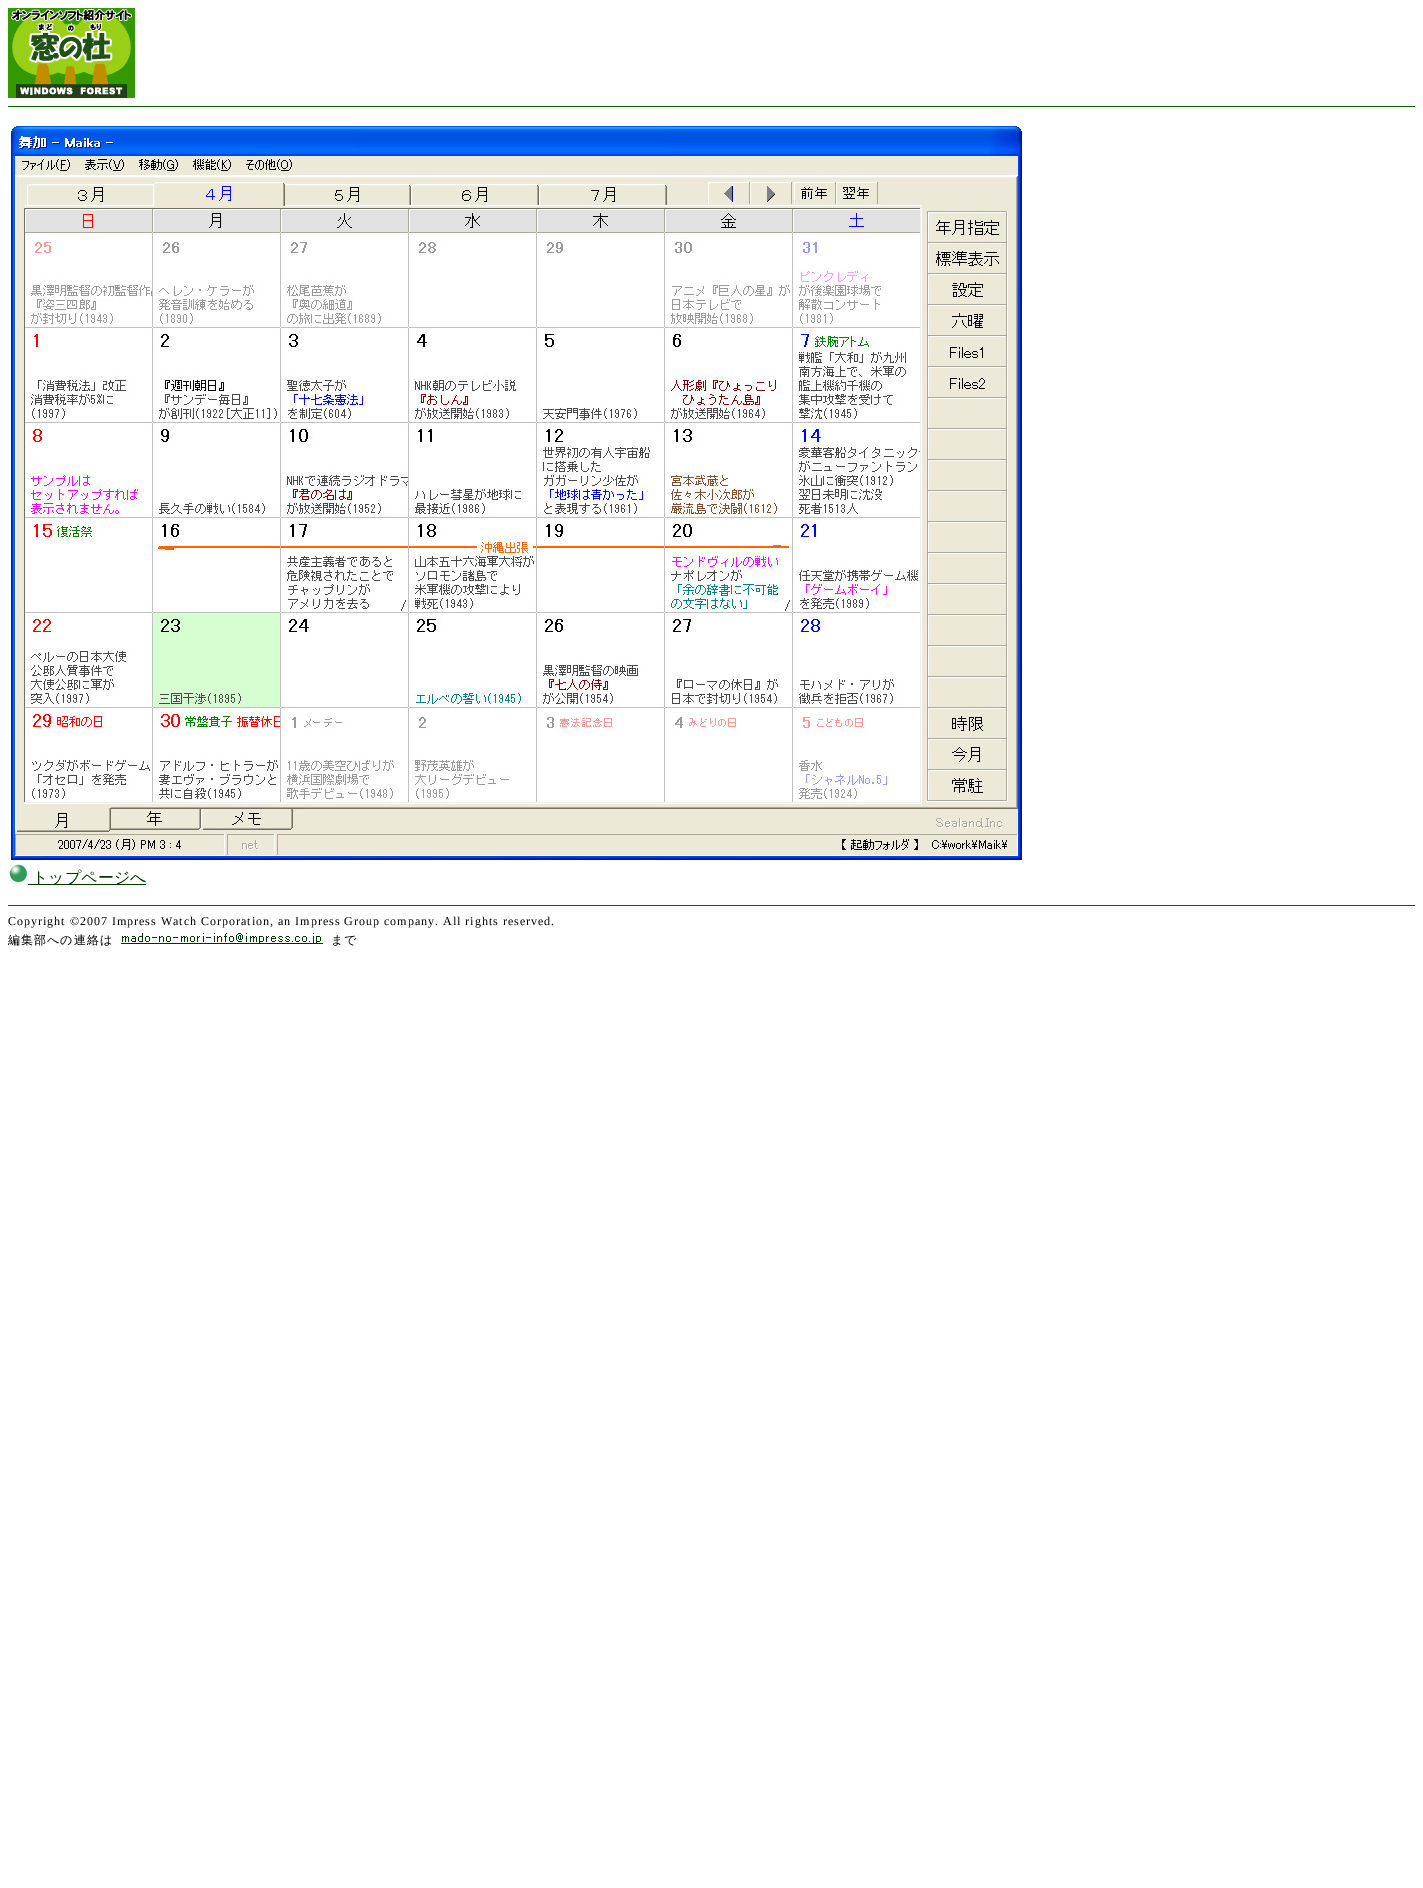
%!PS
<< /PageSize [1423 1888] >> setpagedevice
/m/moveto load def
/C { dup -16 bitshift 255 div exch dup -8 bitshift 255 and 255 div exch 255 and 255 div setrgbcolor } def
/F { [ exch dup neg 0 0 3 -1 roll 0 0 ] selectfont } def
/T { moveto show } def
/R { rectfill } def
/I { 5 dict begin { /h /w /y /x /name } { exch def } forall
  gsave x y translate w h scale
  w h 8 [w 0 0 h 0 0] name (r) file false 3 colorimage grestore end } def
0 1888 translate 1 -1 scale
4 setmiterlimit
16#FFFFFF C
0 0 1423 1888 R
(1.rgb) 8 8 127 90 I
16#006600 C
8 106 1407 1 R
(2.rgb) 11 126 1011 734 I
(3.rgb) 9 864 19 19 I
16#003300 C
28 884 118 1 R
/WenQuanYiZenHei-Medium 16 F
(トップページへ) 32 883 T
16#006600 C
8 905 1407 1 R
/LiberationSerif-Regular 12 F
16#000000 C
8 925 m 1 0 (Copyright ©2007 Impress Watch Corporation, an Impress Group company. All rights reserved.) ashow
/WenQuanYiZenHei-Medium 12 F
8 944 m 1 0 (編集部への連絡は) ashow
(4.rgb) 121 933 202 11 I
331 944 m 1 0 (まで) ashow
showpage
